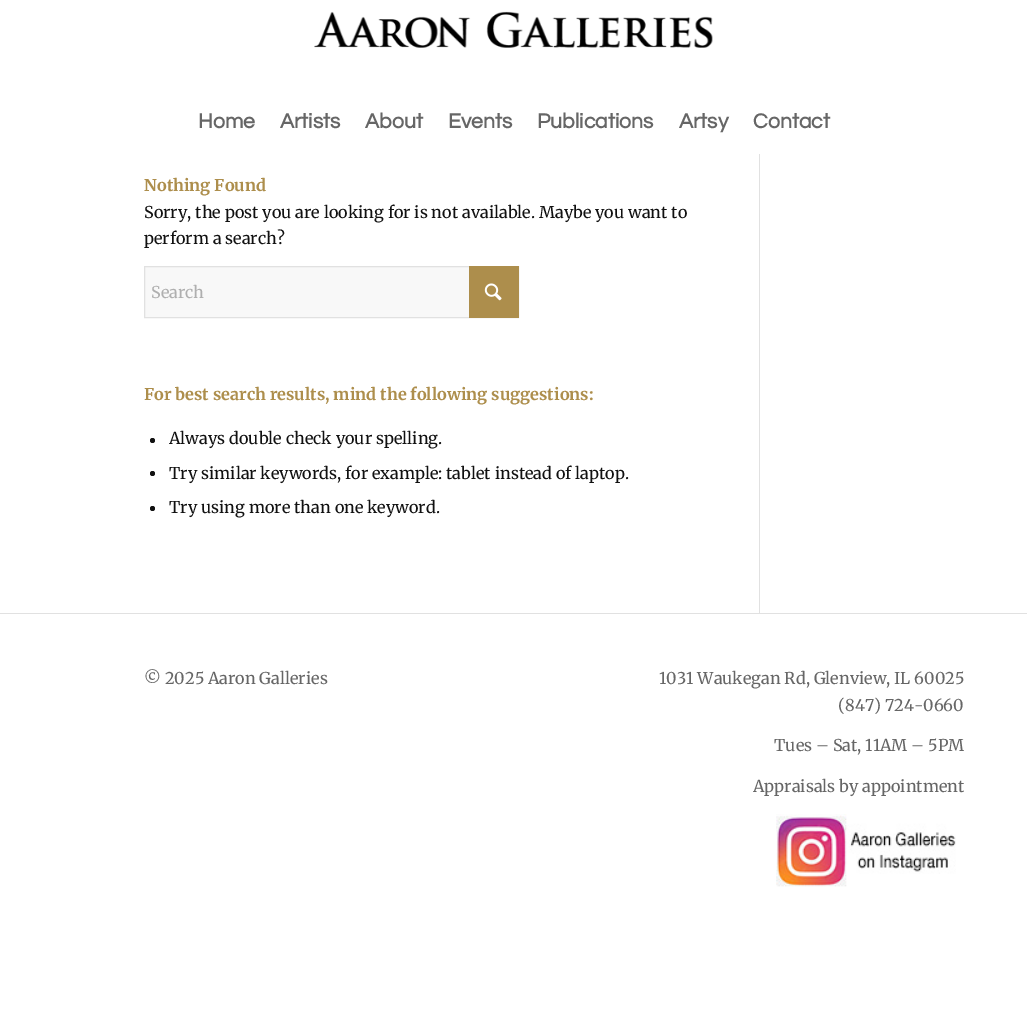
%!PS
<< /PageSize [1027 1014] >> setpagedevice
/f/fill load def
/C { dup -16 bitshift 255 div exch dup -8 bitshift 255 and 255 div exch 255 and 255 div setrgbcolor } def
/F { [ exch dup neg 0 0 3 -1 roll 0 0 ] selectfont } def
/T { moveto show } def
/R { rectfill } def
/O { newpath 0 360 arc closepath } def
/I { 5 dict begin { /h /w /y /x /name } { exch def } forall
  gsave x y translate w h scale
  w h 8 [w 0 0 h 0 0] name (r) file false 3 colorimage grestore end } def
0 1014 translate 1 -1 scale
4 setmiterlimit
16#FFFFFF C
0 0 1027 1014 R
(1.rgb) 314 11 399 37 I
/Questrial-Bold 21.25 F
16#666666 C
(Home) 198 128 T
(Artists) 280 128 T
(About) 365 128 T
(Events) 448 128 T
(Publications) 537 128 T
(Artsy) 679 128 T
(Contact) 753 128 T
16#E1E1E1 C
759 154 1 459 R
/Merriweather-Bold 16.25 F
16#AD8E4C C
(Nothing Found) 144 191 T
/Merriweather-Regular 16.25 F
16#111111 C
(Sorry, the post you are looking for is not available. Maybe you want to) 144 218 T
(perform a search?) 144 244 T
16#F8F8F8 C
145 267 324 50 R
16#E1E1E1 C
144.5 266.5 374 51 rectstroke
16#AD8E4C C
469 266 50 52 R
16#AFAFAF C
(Search) 151 298 T
(2.rgb) 484 283 18 18 I
/Merriweather-Bold 16.25 F
16#AD8E4C C
(For best search results, mind the following suggestions:) 144 400 T
16#111111 C
152.5 440.5 2.5 O f
/Merriweather-Regular 16.25 F
(Always double check your spelling.) 169 444 T
152.5 473.5 2.5 O f
(Try similar keywords, for example: tablet instead of laptop.) 169 479 T
152.5 508.5 2.5 O f
(Try using more than one keyword.) 169 513 T
16#E1E1E1 C
0 613 1027 1 R
16#666666 C
(© 2025 Aaron Galleries) 144 684 T
(1031 Waukegan Rd, Glenview, IL 60025) 659 684 T
(\(847\) 724-0660) 838 711 T
(Tues – Sat, 11AM – 5PM) 774 751 T
(Appraisals by appointment) 753 792 T
(3.rgb) 776 814 180 73 I
showpage
